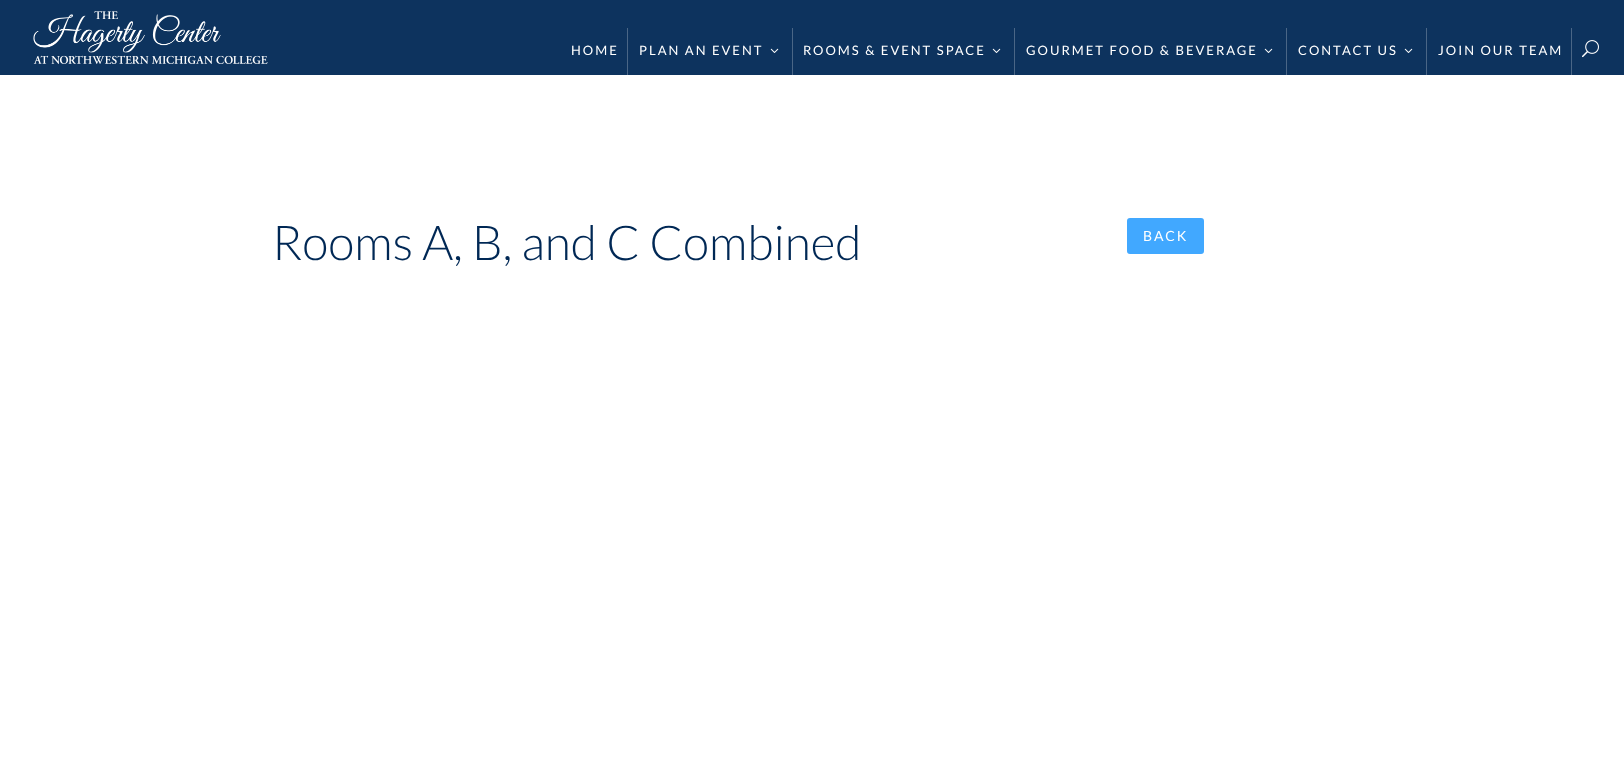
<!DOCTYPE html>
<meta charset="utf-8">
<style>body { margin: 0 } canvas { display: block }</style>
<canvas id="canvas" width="1624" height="763"></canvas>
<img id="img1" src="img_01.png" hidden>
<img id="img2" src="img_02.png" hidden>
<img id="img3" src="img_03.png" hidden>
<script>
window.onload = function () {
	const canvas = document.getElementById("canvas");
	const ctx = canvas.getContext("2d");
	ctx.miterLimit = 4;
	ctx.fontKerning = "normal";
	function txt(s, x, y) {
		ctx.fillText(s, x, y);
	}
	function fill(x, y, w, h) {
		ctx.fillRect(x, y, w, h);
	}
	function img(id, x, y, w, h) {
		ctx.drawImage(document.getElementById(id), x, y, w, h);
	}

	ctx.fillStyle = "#FFFFFF";
	fill(0, 0, 1624, 763);
	ctx.fillStyle = "#0D335E";
	fill(0, 0, 1624, 75);
	img("img1", 33, 11, 235, 53);
	ctx.fillStyle = "#4A6686";
	fill(627, 28, 1, 47);
	fill(792, 28, 1, 47);
	img("img2", 770, 48, 9, 5);
	fill(1014, 28, 1, 47);
	img("img2", 992, 48, 9, 5);
	fill(1286, 28, 1, 47);
	img("img2", 1264, 48, 9, 5);
	fill(1426, 28, 1, 47);
	img("img2", 1404, 48, 9, 5);
	fill(1571, 28, 1, 47);
	img("img3", 1582, 40, 17, 18);
	ctx.fillStyle = "#41A8FF";
	ctx.beginPath();
	ctx.roundRect(1128, 219, 75, 34, 2);
	ctx.fill();
	ctx.strokeStyle = "#41A8FF";
	ctx.lineWidth = 2;
	ctx.stroke();
	ctx.letterSpacing = "2px";
	ctx.font = "13px Lato";
	ctx.fillStyle = "#FFFFFF";
	txt("HOME", 571, 55);
	txt("PLAN AN EVENT", 639, 55);
	txt("ROOMS & EVENT SPACE", 803, 55);
	txt("GOURMET FOOD & BEVERAGE", 1026, 55);
	txt("CONTACT US", 1298, 55);
	txt("JOIN OUR TEAM", 1438, 55);
	ctx.letterSpacing = "0px";
	ctx.font = "300 48px Lato";
	ctx.fillStyle = "#002855";
	txt("Rooms A, B, and C Combined", 272, 260);
	ctx.letterSpacing = "2px";
	ctx.font = "14px Lato";
	ctx.fillStyle = "#FFFFFF";
	txt("BACK", 1143, 241);
};
</script>
